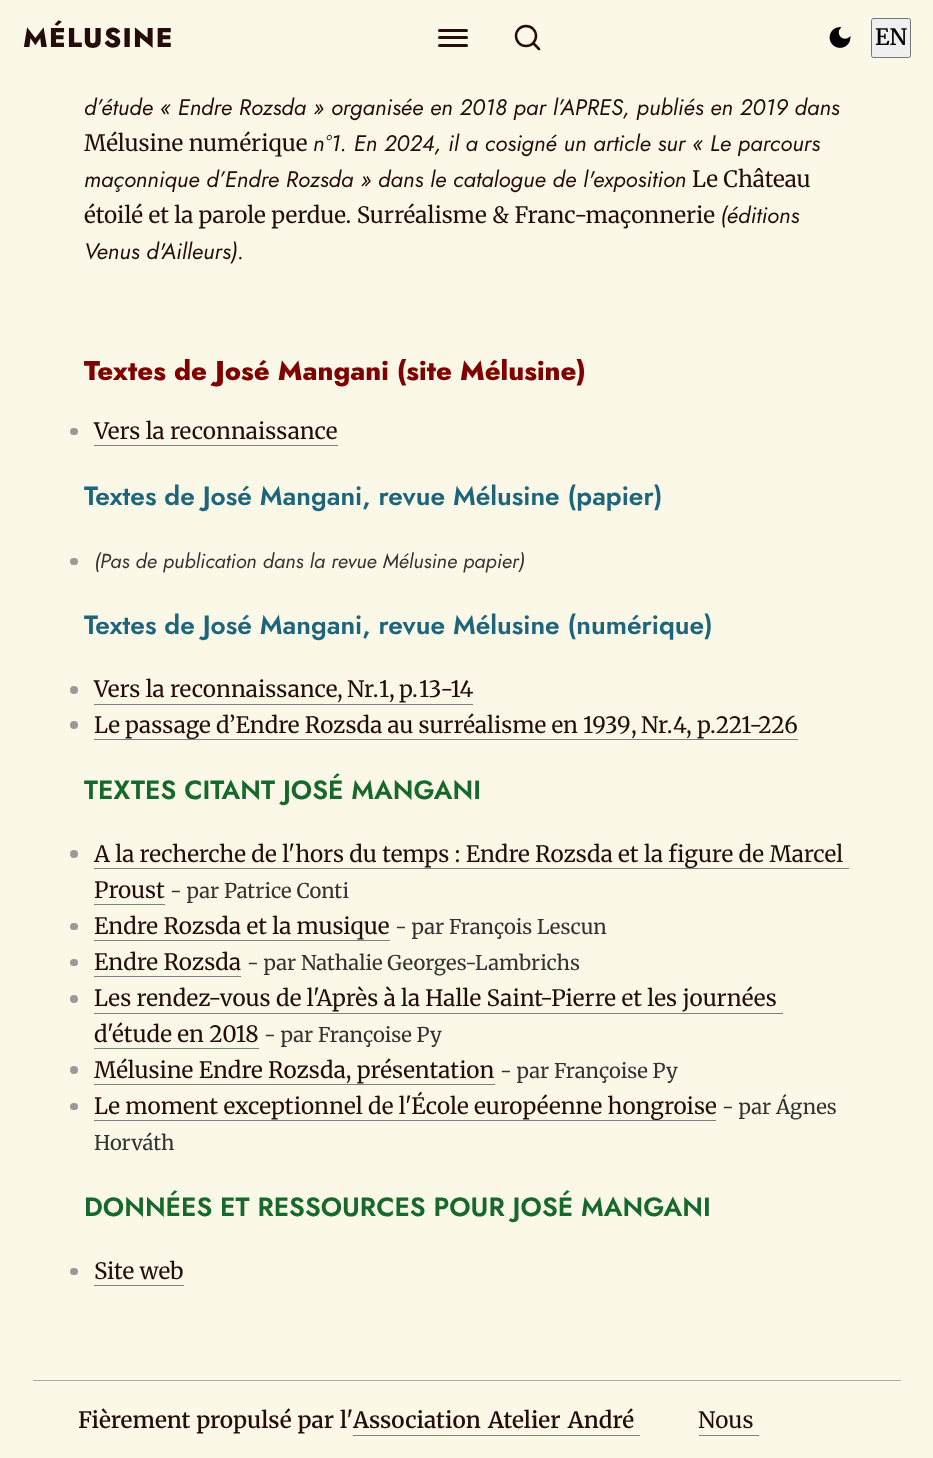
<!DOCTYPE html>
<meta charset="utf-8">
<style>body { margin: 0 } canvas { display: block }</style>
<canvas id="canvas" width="933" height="1458"></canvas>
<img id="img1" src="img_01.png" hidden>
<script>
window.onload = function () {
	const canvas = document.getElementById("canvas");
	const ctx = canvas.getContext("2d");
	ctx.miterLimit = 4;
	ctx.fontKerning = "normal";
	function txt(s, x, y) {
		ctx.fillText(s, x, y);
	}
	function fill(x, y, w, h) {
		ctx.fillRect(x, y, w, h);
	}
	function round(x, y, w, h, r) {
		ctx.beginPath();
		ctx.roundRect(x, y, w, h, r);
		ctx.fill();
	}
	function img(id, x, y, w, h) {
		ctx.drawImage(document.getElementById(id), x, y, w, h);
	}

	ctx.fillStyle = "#FBF8E7";
	fill(0, 0, 933, 1458);
	ctx.fillStyle = "#260D0D";
	round(438, 29, 30, 3, 1.5);
	round(438, 36, 30, 3, 1.5);
	round(438, 44, 30, 3, 1.5);
	ctx.beginPath();
	ctx.arc(526, 36, 10, 0, Math.PI * 2);
	ctx.strokeStyle = "#260D0D";
	ctx.lineWidth = 2.5;
	ctx.stroke();
	ctx.beginPath();
	ctx.moveTo(539, 49);
	ctx.lineTo(533.5, 43.5);
	ctx.lineCap = "round";
	ctx.lineJoin = "round";
	ctx.stroke();
	img("img1", 829, 26, 22, 22);
	ctx.fillStyle = "#EFEFEF";
	ctx.beginPath();
	ctx.roundRect(871.5, 18.5, 39, 39, 2);
	ctx.fill();
	ctx.strokeStyle = "#767676";
	ctx.lineWidth = 1;
	ctx.lineJoin = "miter";
	ctx.stroke();
	ctx.fillStyle = "#999999";
	round(70, 428, 8, 7, 3.5);
	ctx.fillStyle = "#808080";
	fill(94, 445, 244, 1);
	ctx.fillStyle = "#999999";
	round(70, 558, 8, 7, 3.5);
	ctx.beginPath();
	ctx.arc(74, 690, 4, 0, Math.PI * 2);
	ctx.fill();
	ctx.fillStyle = "#808080";
	fill(94, 704, 379, 1);
	ctx.fillStyle = "#999999";
	ctx.beginPath();
	ctx.arc(74, 725, 4, 0, Math.PI * 2);
	ctx.fill();
	ctx.fillStyle = "#808080";
	fill(94, 739, 704, 1);
	ctx.fillStyle = "#999999";
	ctx.beginPath();
	ctx.arc(74, 854, 4, 0, Math.PI * 2);
	ctx.fill();
	ctx.fillStyle = "#808080";
	fill(94, 868, 755, 1);
	fill(94, 904, 71, 1);
	ctx.fillStyle = "#999999";
	round(70, 923, 8, 7, 3.5);
	ctx.fillStyle = "#808080";
	fill(94, 940, 296, 1);
	ctx.fillStyle = "#999999";
	round(70, 959, 8, 7, 3.5);
	ctx.fillStyle = "#808080";
	fill(94, 976, 147, 1);
	ctx.fillStyle = "#999999";
	ctx.beginPath();
	ctx.arc(74, 999, 4, 0, Math.PI * 2);
	ctx.fill();
	ctx.fillStyle = "#808080";
	fill(94, 1013, 689, 1);
	fill(94, 1048, 165, 1);
	ctx.fillStyle = "#999999";
	ctx.beginPath();
	ctx.arc(74, 1070, 4, 0, Math.PI * 2);
	ctx.fill();
	ctx.fillStyle = "#808080";
	fill(94, 1084, 401, 1);
	ctx.fillStyle = "#999999";
	round(70, 1103, 8, 7, 3.5);
	ctx.fillStyle = "#808080";
	fill(94, 1120, 622, 1);
	ctx.fillStyle = "#999999";
	round(70, 1268, 8, 7, 3.5);
	ctx.fillStyle = "#808080";
	fill(94, 1285, 90, 1);
	ctx.fillStyle = "#A9A9A9";
	fill(33, 1380, 868, 1);
	ctx.fillStyle = "#808080";
	fill(353, 1435, 287, 1);
	fill(699, 1435, 60, 1);
	ctx.letterSpacing = "1.25px";
	ctx.font = "800 27px Jost";
	ctx.fillStyle = "#260D0D";
	txt("MÉLUSINE", 23, 47);
	ctx.letterSpacing = "0px";
	ctx.font = "600 22.5px Merriweather";
	ctx.fillStyle = "#000000";
	txt("EN", 875, 45);
	ctx.font = "italic 22.5px Jost";
	ctx.fillStyle = "#260D0D";
	txt("d’étude « Endre Rozsda » organisée en 2018 par l’APRES, publiés en 2019 dans", 84, 115);
	ctx.font = "22.5px Merriweather";
	txt("Mélusine numérique", 84, 151);
	ctx.font = "italic 22.5px Jost";
	txt("n°1. En 2024, il a cosigné un article sur « Le parcours", 313, 151);
	txt("maçonnique d’Endre Rozsda » dans le catalogue de l'exposition", 84, 187);
	ctx.font = "22.5px Merriweather";
	txt("Le Château", 692, 187);
	txt("étoilé et la parole perdue. Surréalisme & Franc-maçonnerie", 84, 223);
	ctx.font = "italic 22.5px Jost";
	txt("(éditions", 720, 223);
	txt("Venus d'Ailleurs).", 84, 259);
	ctx.font = "800 27px Jost";
	ctx.fillStyle = "#800000";
	txt("Textes de José Mangani (site Mélusine)", 84, 380);
	ctx.font = "22.5px Merriweather";
	ctx.fillStyle = "#260D0D";
	txt("Vers la reconnaissance", 94, 439);
	ctx.font = "600 26.3px Jost";
	ctx.fillStyle = "#1C657D";
	txt("Textes de José Mangani, revue Mélusine (papier)", 84, 505);
	ctx.font = "italic 20.25px Jost";
	ctx.fillStyle = "#333333";
	txt("(Pas de publication dans la revue Mélusine papier)", 94, 568);
	ctx.font = "600 26.3px Jost";
	ctx.fillStyle = "#1C657D";
	txt("Textes de José Mangani, revue Mélusine (numérique)", 84, 634);
	ctx.font = "22.5px Merriweather";
	ctx.fillStyle = "#260D0D";
	txt("Vers la reconnaissance", 94, 697);
	ctx.wordSpacing = "-1px";
	txt(", Nr.", 337, 697);
	ctx.wordSpacing = "0px";
	txt("1", 379, 697);
	ctx.wordSpacing = "-1px";
	txt(", p.", 389, 697);
	ctx.wordSpacing = "0px";
	txt("13-14", 419, 697);
	ctx.wordSpacing = "-0.25px";
	txt("Le passage d’Endre Rozsda au surréalisme en 1939", 94, 733);
	ctx.wordSpacing = "-1px";
	txt(", Nr.", 631, 733);
	ctx.wordSpacing = "0px";
	txt("4", 673, 733);
	txt(", p.221-226", 686, 733);
	ctx.font = "600 26.3px Jost";
	ctx.fillStyle = "#16692B";
	txt("TEXTES CITANT JOSÉ MANGANI", 84, 799);
	ctx.font = "22.5px Merriweather";
	ctx.fillStyle = "#260D0D";
	txt("A la recherche de l'hors du temps : Endre Rozsda et la figure de Marcel", 94, 862);
	txt("Proust", 94, 898);
	ctx.font = "20.25px Merriweather";
	ctx.fillStyle = "#333333";
	txt("- par Patrice Conti", 170, 898);
	ctx.font = "22.5px Merriweather";
	ctx.fillStyle = "#260D0D";
	txt("Endre Rozsda et la musique", 94, 934);
	ctx.font = "20.25px Merriweather";
	ctx.fillStyle = "#333333";
	txt("- par François Lescun", 395, 934);
	ctx.font = "22.5px Merriweather";
	ctx.fillStyle = "#260D0D";
	txt("Endre Rozsda", 94, 970);
	ctx.font = "20.25px Merriweather";
	ctx.fillStyle = "#333333";
	txt("- par Nathalie Georges-Lambrichs", 247, 970);
	ctx.font = "22.5px Merriweather";
	ctx.fillStyle = "#260D0D";
	txt("Les rendez-vous de l'Après à la Halle Saint-Pierre et les journées", 94, 1006);
	txt("d'étude en 2018", 94, 1042);
	ctx.font = "20.25px Merriweather";
	ctx.fillStyle = "#333333";
	txt("- par Françoise Py", 264, 1042);
	ctx.font = "22.5px Merriweather";
	ctx.fillStyle = "#260D0D";
	txt("Mélusine Endre Rozsda, présentation", 94, 1078);
	ctx.font = "20.25px Merriweather";
	ctx.fillStyle = "#333333";
	txt("- par Françoise Py", 500, 1078);
	ctx.font = "22.5px Merriweather";
	ctx.fillStyle = "#260D0D";
	txt("Le moment exceptionnel de l'École européenne hongroise", 94, 1114);
	ctx.font = "20.25px Merriweather";
	ctx.fillStyle = "#333333";
	txt("- par Ágnes", 722, 1114);
	txt("Horváth", 94, 1150);
	ctx.font = "600 26.3px Jost";
	ctx.fillStyle = "#16692B";
	txt("DONNÉES ET RESSOURCES POUR JOSÉ MANGANI", 84, 1216);
	ctx.font = "22.5px Merriweather";
	ctx.fillStyle = "#260D0D";
	txt("Site web", 94, 1279);
	ctx.wordSpacing = "0.5px";
	ctx.font = "600 22.5px Merriweather";
	txt("Fièrement propulsé par l'", 78, 1428);
	ctx.wordSpacing = "2px";
	txt("Association Atelier André", 353, 1428);
	ctx.wordSpacing = "0px";
	ctx.font = "22.5px Merriweather";
	txt("Nous", 698, 1428);
};
</script>
